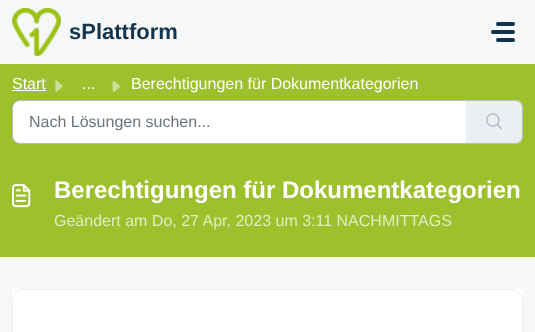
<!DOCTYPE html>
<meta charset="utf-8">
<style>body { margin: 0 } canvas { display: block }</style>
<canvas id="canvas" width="535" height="332"></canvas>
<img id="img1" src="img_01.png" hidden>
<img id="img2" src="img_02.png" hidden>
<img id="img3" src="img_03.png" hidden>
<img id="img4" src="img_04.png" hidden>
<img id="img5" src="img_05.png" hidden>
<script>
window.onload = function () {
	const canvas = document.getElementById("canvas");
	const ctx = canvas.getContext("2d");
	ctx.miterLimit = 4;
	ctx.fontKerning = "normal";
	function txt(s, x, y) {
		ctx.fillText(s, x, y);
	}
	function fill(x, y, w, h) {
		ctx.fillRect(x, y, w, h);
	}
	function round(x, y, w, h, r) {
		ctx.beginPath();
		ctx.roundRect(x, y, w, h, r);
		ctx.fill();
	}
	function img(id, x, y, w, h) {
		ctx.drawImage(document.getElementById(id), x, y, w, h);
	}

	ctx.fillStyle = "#F5F7F9";
	fill(0, 0, 535, 332);
	img("img1", 12, 8, 49, 48);
	ctx.fillStyle = "#12344D";
	round(496, 22, 19, 4, 2);
	round(491, 30, 24, 4, 2);
	round(496, 38, 19, 4, 2);
	ctx.fillStyle = "#9DC02D";
	fill(0, 64, 535, 193);
	ctx.fillStyle = "#FFFFFF";
	fill(12, 90, 34, 1);
	img("img2", 55, 80, 8, 12);
	img("img3", 112, 80, 8, 13);
	ctx.beginPath();
	ctx.roundRect(12.5, 100.5, 454, 43, [7.5, 0, 0, 7.5]);
	ctx.fill();
	ctx.strokeStyle = "#B1BDC8";
	ctx.stroke();
	ctx.fillStyle = "#EBEFF3";
	ctx.beginPath();
	ctx.roundRect(466, 100, 57, 44, [0, 8, 8, 0]);
	ctx.fill();
	ctx.fillStyle = "#B1BDC8";
	ctx.beginPath();
	ctx.moveTo(466, 100);
	ctx.lineTo(515, 100);
	ctx.bezierCurveTo(519, 100, 523, 104, 523, 108);
	ctx.lineTo(523, 136);
	ctx.bezierCurveTo(523, 140, 519, 144, 515, 144);
	ctx.lineTo(466, 144);
	ctx.closePath();
	ctx.moveTo(466, 101);
	ctx.lineTo(515, 101);
	ctx.bezierCurveTo(519, 101, 522, 104, 522, 108);
	ctx.lineTo(522, 136);
	ctx.bezierCurveTo(522, 140, 519, 143, 515, 143);
	ctx.lineTo(466, 143);
	ctx.closePath();
	ctx.fill("evenodd");
	img("img4", 486, 113, 16, 17);
	img("img5", 12, 184, 19, 24);
	ctx.fillStyle = "#FFFFFF";
	fill(12, 289, 511, 43);
	ctx.beginPath();
	ctx.roundRect(12.5, 289.5, 510, 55, 11.5);
	ctx.strokeStyle = "#EBEFF3";
	ctx.stroke();
	ctx.font = "bold 22px Liberation Sans";
	ctx.fillStyle = "#12344D";
	txt("sPlattform", 69, 39);
	ctx.font = "16px Liberation Sans";
	ctx.fillStyle = "#FFFFFF";
	txt("Start", 12, 89);
	txt("...", 82, 89);
	txt("Berechtigungen für Dokumentkategorien", 131, 89);
	ctx.fillStyle = "#6C757D";
	txt("Nach Lösungen suchen...", 29, 127);
	ctx.font = "bold 24px Liberation Sans";
	ctx.fillStyle = "#FFFFFF";
	txt("Berechtigungen für Dokumentkategorien", 54, 198);
	ctx.font = "16px Liberation Sans";
	ctx.fillStyle = "#E2ECC0";
	txt("Geändert am Do, 27 Apr, 2023 um 3:11 NACHMITTAGS", 54, 226);
};
</script>
